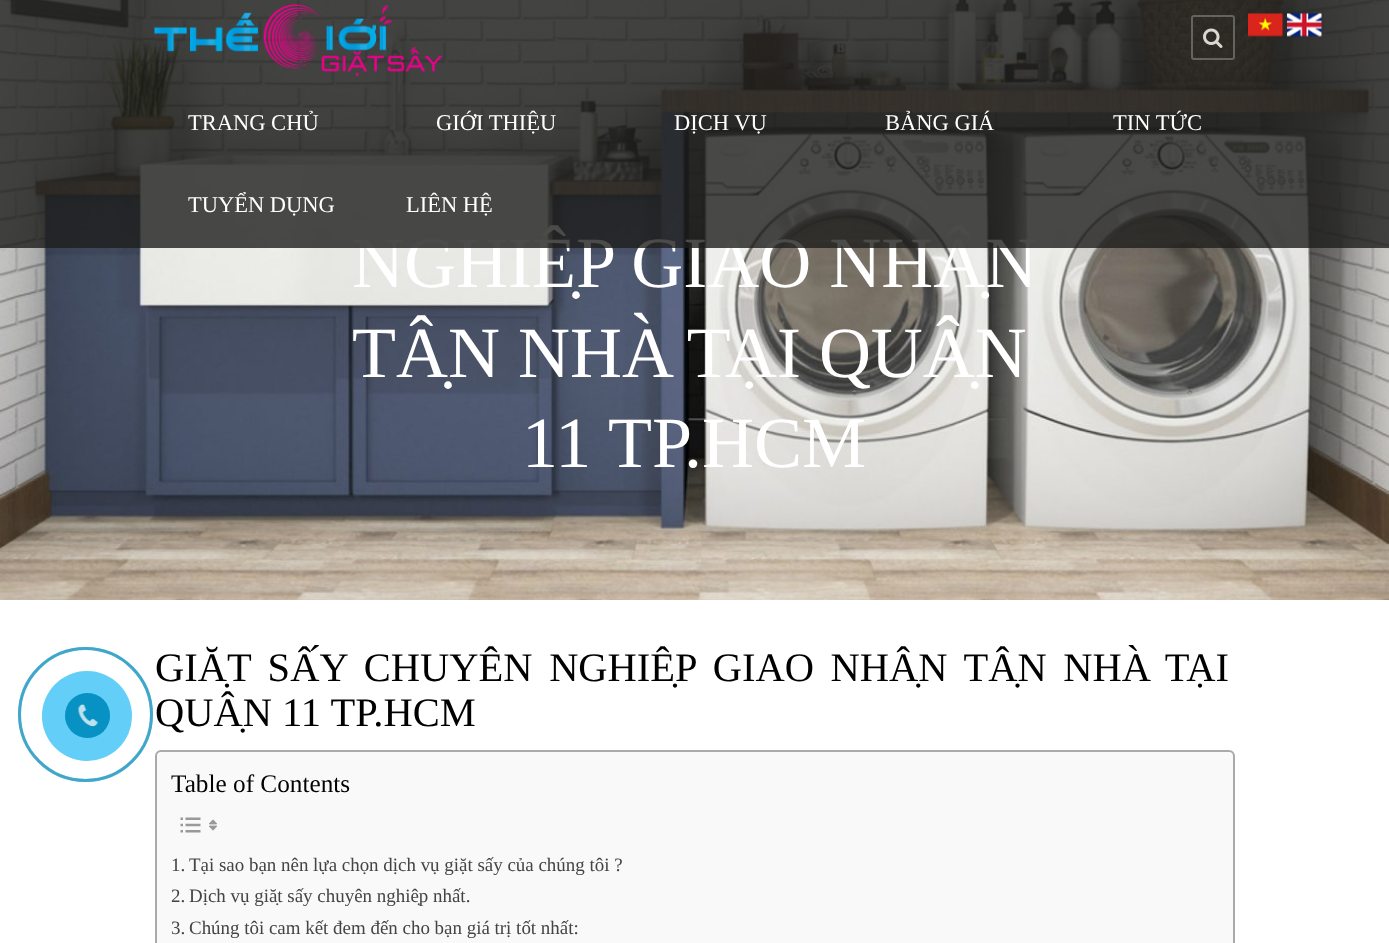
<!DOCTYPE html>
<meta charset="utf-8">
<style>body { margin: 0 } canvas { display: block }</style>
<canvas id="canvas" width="1389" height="943"></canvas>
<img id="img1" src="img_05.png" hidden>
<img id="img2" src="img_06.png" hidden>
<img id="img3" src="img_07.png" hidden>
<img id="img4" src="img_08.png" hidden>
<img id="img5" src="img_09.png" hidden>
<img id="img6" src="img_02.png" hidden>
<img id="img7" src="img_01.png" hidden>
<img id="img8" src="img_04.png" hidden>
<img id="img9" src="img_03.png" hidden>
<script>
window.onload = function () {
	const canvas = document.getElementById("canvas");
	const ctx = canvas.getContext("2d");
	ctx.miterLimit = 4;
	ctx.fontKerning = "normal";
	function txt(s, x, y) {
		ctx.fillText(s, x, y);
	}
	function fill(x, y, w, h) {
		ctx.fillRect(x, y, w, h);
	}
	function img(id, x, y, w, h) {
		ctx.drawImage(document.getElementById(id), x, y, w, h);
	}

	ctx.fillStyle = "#FFFFFF";
	fill(0, 0, 1389, 943);
	ctx.beginPath();
	ctx.arc(85.5, 714.5, 66, 0, Math.PI * 2);
	ctx.strokeStyle = "#80C4DC";
	ctx.lineWidth = 3;
	ctx.stroke();
	ctx.fillStyle = "#A0E1FA";
	ctx.beginPath();
	ctx.arc(87, 716, 45, 0, Math.PI * 2);
	ctx.fill();
	ctx.fillStyle = "#30A3CD";
	ctx.beginPath();
	ctx.arc(87.5, 715.5, 22.5, 0, Math.PI * 2);
	ctx.fill();
	img("img1", 78, 704, 20, 23);
	img("img2", 0, 0, 1389, 600);
	ctx.fillStyle = "#F9F9F9";
	ctx.beginPath();
	ctx.roundRect(156, 751, 1078, 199, 5);
	ctx.fill();
	ctx.strokeStyle = "#AAAAAA";
	ctx.lineWidth = 2;
	ctx.stroke();
	img("img3", 180, 817, 21, 16);
	img("img4", 209, 819, 8, 12);
	ctx.beginPath();
	ctx.arc(85.5, 714.5, 66, 0, Math.PI * 2);
	ctx.strokeStyle = "rgba(0, 137, 185, 0.5)";
	ctx.lineWidth = 3;
	ctx.stroke();
	ctx.fillStyle = "rgba(0, 175, 242, 0.38)";
	ctx.beginPath();
	ctx.arc(87, 716, 45, 0, Math.PI * 2);
	ctx.fill();
	ctx.fillStyle = "rgba(0, 137, 185, 0.7)";
	ctx.beginPath();
	ctx.arc(87.5, 715.5, 22.5, 0, Math.PI * 2);
	ctx.fill();
	img("img5", 78, 704, 20, 23);
	ctx.font = "72px Liberation Serif";
	ctx.fillStyle = "#FFFFFF";
	txt("NGHIỆP GIAO NHẬN", 352, 287);
	ctx.fillStyle = "rgba(30, 30, 29, 0.8)";
	fill(0, 0, 1389, 248);
	img("img6", 1287, 13, 35, 24);
	img("img7", 1248, 13, 35, 24);
	ctx.font = "22.5px Liberation Serif";
	ctx.fillStyle = "#FFFFFF";
	txt("LIÊN HỆ", 406, 212);
	txt("TUYỂN DỤNG", 188, 212);
	txt("TIN TỨC", 1113, 130);
	txt("BẢNG GIÁ", 885, 130);
	txt("DỊCH VỤ", 674, 130);
	txt("GIỚI THIỆU", 436, 130);
	txt("TRANG CHỦ", 188, 130);
	ctx.beginPath();
	ctx.roundRect(1192, 16, 42, 43, 2);
	ctx.strokeStyle = "#636360";
	ctx.lineWidth = 2;
	ctx.stroke();
	img("img8", 1203, 28, 20, 20);
	img("img9", 154, 4, 289, 73);
	ctx.font = "72px Liberation Serif";
	txt("TẬN NHÀ TẠI QUẬN", 352, 377);
	txt("11 TP.HCM", 522, 467);
	ctx.wordSpacing = "6.5px";
	ctx.font = "40.5px Liberation Serif";
	ctx.fillStyle = "#000000";
	txt("GIẶT SẤY CHUYÊN NGHIỆP GIAO NHẬN TẬN NHÀ TẠI", 155, 681);
	ctx.wordSpacing = "0px";
	txt("QUẬN 11 TP.HCM", 155, 726);
	ctx.font = "25.25px Liberation Serif";
	txt("Table of Contents", 171, 792);
	ctx.font = "18.95px Liberation Serif";
	ctx.fillStyle = "#444444";
	txt("1.", 171, 871);
	txt("Tại sao bạn nên lựa chọn dịch vụ giặt sấy của chúng tôi ?", 189, 871);
	txt("2.", 171, 902);
	txt("Dịch vụ giặt sấy chuyên nghiệp nhất.", 189, 902);
	txt("3.", 171, 934);
	txt("Chúng tôi cam kết đem đến cho bạn giá trị tốt nhất:", 189, 934);
};
</script>
